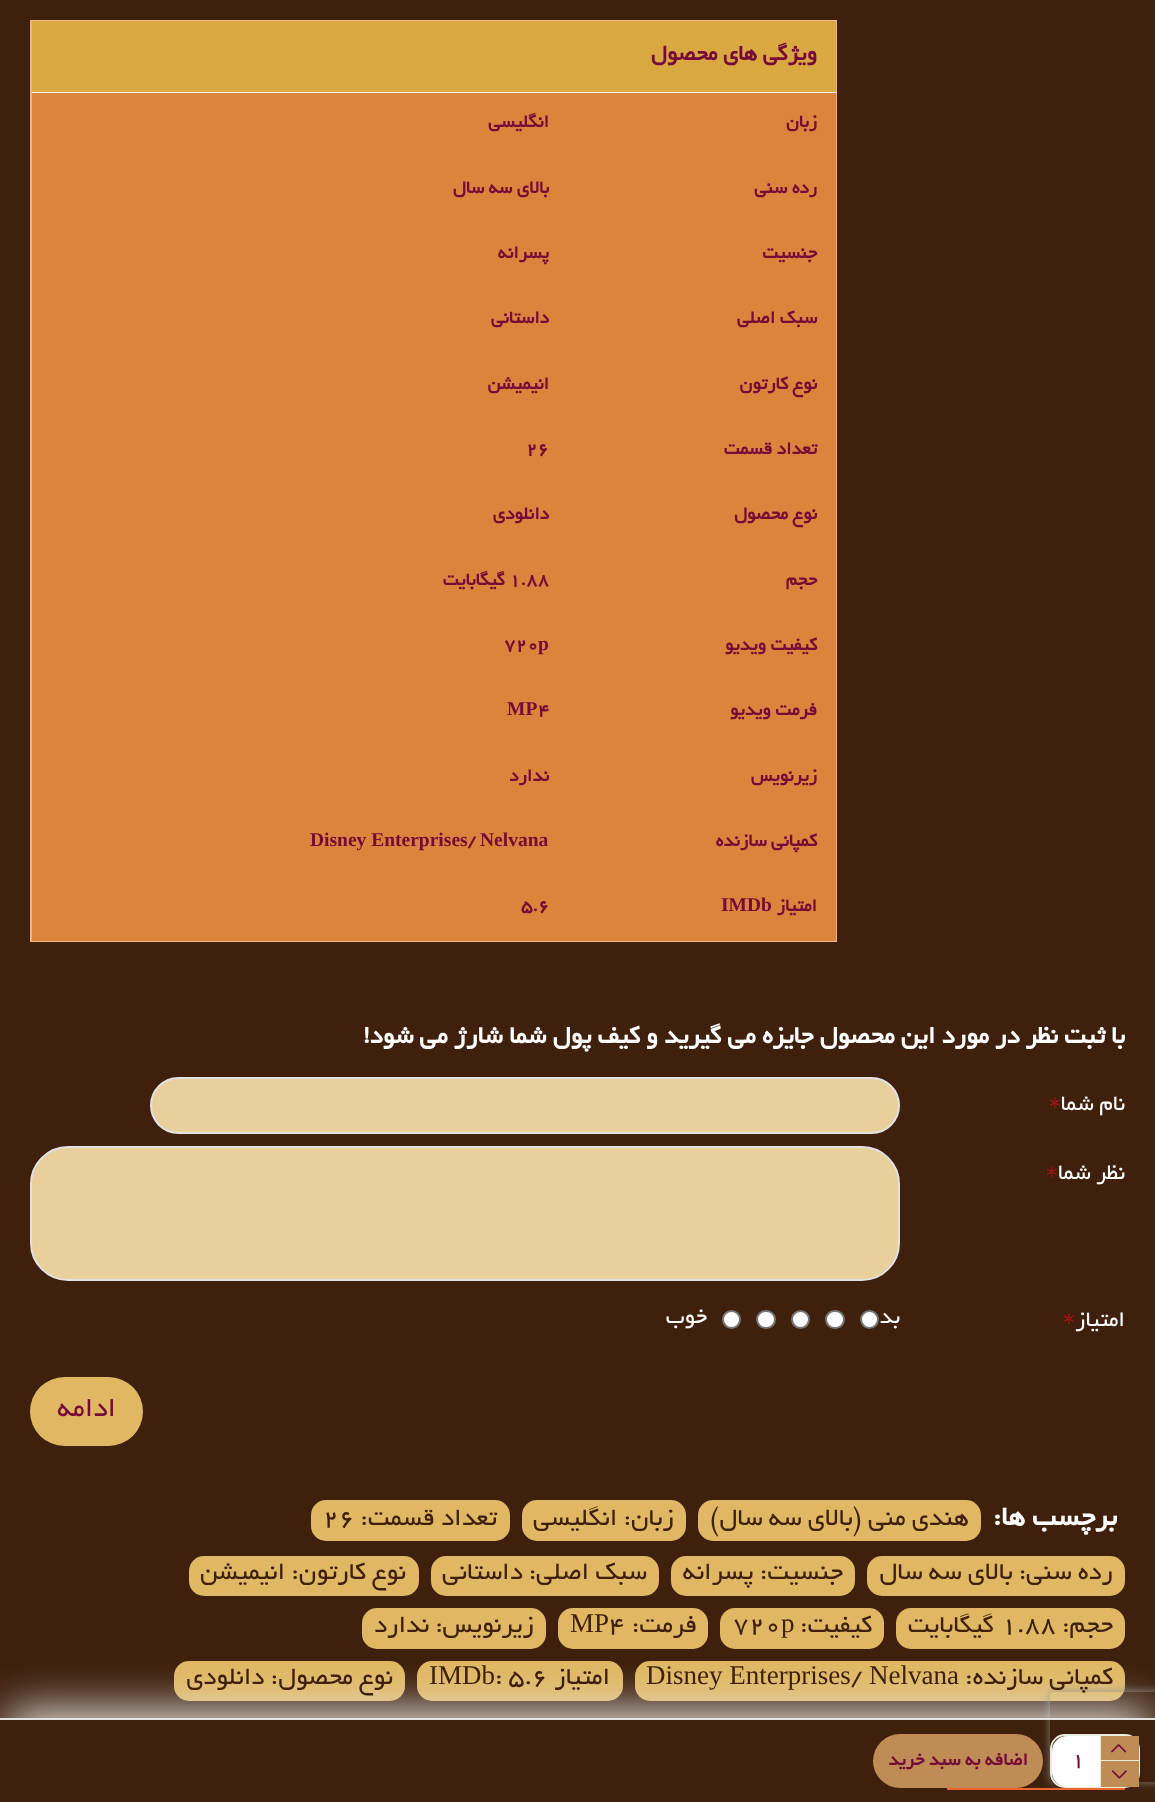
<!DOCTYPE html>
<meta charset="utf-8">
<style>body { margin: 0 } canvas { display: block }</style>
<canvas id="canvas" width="1155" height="1802"></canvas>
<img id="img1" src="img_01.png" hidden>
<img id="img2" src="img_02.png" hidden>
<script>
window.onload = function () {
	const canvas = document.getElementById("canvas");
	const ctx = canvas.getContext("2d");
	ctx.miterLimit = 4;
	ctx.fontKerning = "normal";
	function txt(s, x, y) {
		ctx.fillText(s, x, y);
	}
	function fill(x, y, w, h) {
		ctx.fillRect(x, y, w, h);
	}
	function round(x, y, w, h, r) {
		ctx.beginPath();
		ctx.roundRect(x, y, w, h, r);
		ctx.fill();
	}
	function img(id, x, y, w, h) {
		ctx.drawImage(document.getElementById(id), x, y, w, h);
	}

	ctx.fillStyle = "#3E200C";
	fill(0, 0, 1155, 1802);
	ctx.strokeStyle = "#F0B386";
	ctx.lineWidth = 2;
	ctx.strokeRect(31, 21, 805, 920);
	ctx.fillStyle = "#D9A841";
	fill(32, 21, 804, 71);
	ctx.fillStyle = "#FFFFFF";
	fill(32, 92, 804, 1);
	ctx.fillStyle = "#DB843C";
	fill(32, 93, 804, 65);
	fill(32, 158, 804, 66);
	fill(32, 224, 804, 66);
	fill(32, 290, 804, 64);
	fill(32, 354, 804, 66);
	fill(32, 420, 804, 65);
	fill(32, 485, 804, 66);
	fill(32, 551, 804, 64);
	fill(32, 615, 804, 66);
	fill(32, 681, 804, 65);
	fill(32, 746, 804, 66);
	fill(32, 812, 804, 66);
	fill(32, 878, 804, 63);
	ctx.fillStyle = "#E0B863";
	round(896, 1608, 229, 41, 15);
	round(720, 1608, 164, 41, 15);
	round(558, 1608, 150, 41, 15);
	round(362, 1608, 184, 41, 15);
	round(635, 1661, 490, 40, 15);
	round(417, 1661, 206, 40, 15);
	round(174, 1661, 231, 40, 15);
	ctx.save();
	ctx.beginPath();
	ctx.moveTo(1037, 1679);
	ctx.lineTo(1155, 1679);
	ctx.lineTo(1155, 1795);
	ctx.lineTo(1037, 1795);
	ctx.closePath();
	ctx.moveTo(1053, 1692);
	ctx.lineTo(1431, 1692);
	ctx.bezierCurveTo(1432.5, 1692, 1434, 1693.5, 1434, 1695);
	ctx.lineTo(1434, 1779);
	ctx.bezierCurveTo(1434, 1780.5, 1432.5, 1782, 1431, 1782);
	ctx.lineTo(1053, 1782);
	ctx.bezierCurveTo(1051.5, 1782, 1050, 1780.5, 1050, 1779);
	ctx.lineTo(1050, 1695);
	ctx.bezierCurveTo(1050, 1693.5, 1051.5, 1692, 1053, 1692);
	ctx.closePath();
	ctx.clip("evenodd");
	ctx.fillStyle = "#808080";
	ctx.filter = "blur(4px)";
	ctx.beginPath();
	ctx.roundRect(1050, 1692, 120, 90, 3);
	ctx.fill();
	ctx.filter = "none";
	ctx.restore();
	ctx.fillStyle = "#E96631";
	fill(947, 1788, 178, 2);
	ctx.save();
	ctx.beginPath();
	ctx.rect(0, 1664, 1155, 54);
	ctx.clip();
	ctx.fillStyle = "#E2E2E2";
	ctx.filter = "blur(22.5px)";
	ctx.beginPath();
	ctx.rect(8, 1710, 1140, 71);
	ctx.fill();
	ctx.filter = "none";
	ctx.restore();
	ctx.fillStyle = "#E2E2E2";
	fill(0, 1718, 1155, 2);
	ctx.beginPath();
	ctx.roundRect(1051, 1735, 88, 52, 14);
	ctx.strokeStyle = "#EAECDC";
	ctx.stroke();
	ctx.fillStyle = "#FFFFFF";
	round(1052, 1736, 87, 51, 15);
	ctx.fillStyle = "#EAECDC";
	fill(1100, 1736, 1, 51);
	ctx.fillStyle = "#C08C55";
	fill(1101, 1736, 38, 24);
	ctx.fillStyle = "#EAECDC";
	fill(1101, 1760, 38, 1);
	img("img1", 1111, 1744, 16, 9);
	ctx.fillStyle = "#C08C55";
	fill(1101, 1761, 38, 26);
	img("img2", 1111, 1770, 16, 9);
	round(873, 1734, 170, 54, 27);
	ctx.fillStyle = "#E8CF9C";
	ctx.beginPath();
	ctx.roundRect(151, 1078, 748, 55, 27.5);
	ctx.fill();
	ctx.strokeStyle = "#E2E2E2";
	ctx.stroke();
	ctx.beginPath();
	ctx.roundRect(31, 1147, 868, 133, 37);
	ctx.fill();
	ctx.stroke();
	ctx.fillStyle = "#FFFFFF";
	ctx.beginPath();
	ctx.arc(869.5, 1319.5, 8.5, 0, Math.PI * 2);
	ctx.fill();
	ctx.strokeStyle = "#767676";
	ctx.stroke();
	ctx.beginPath();
	ctx.roundRect(826, 1311, 18, 17, 8.5);
	ctx.fill();
	ctx.stroke();
	ctx.beginPath();
	ctx.arc(800.5, 1319.5, 8.5, 0, Math.PI * 2);
	ctx.fill();
	ctx.stroke();
	ctx.beginPath();
	ctx.roundRect(757, 1311, 18, 17, 8.5);
	ctx.fill();
	ctx.stroke();
	ctx.beginPath();
	ctx.arc(731.5, 1319.5, 8.5, 0, Math.PI * 2);
	ctx.fill();
	ctx.stroke();
	ctx.fillStyle = "#E0B863";
	round(30, 1377, 113, 69, 34.5);
	round(698, 1500, 283, 41, 15);
	round(522, 1500, 164, 41, 15);
	round(311, 1500, 199, 41, 15);
	round(867, 1556, 258, 40, 15);
	round(671, 1556, 184, 40, 15);
	round(431, 1556, 228, 40, 15);
	round(189, 1556, 230, 40, 15);
	ctx.direction = "rtl";
	ctx.font = "bold 24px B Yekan";
	ctx.fillStyle = "#760B39";
	txt("ویژگی های محصول", 817, 60);
	ctx.font = "bold 19.5px B Yekan";
	txt("زبان", 817, 127);
	txt("انگلیسی", 549, 127);
	txt("رده سنی", 817, 193);
	txt("بالای سه سال", 549, 193);
	txt("جنسیت", 817, 258);
	txt("پسرانه", 549, 258);
	txt("سبک اصلی", 817, 323);
	txt("داستانی", 549, 323);
	txt("نوع کارتون", 817, 389);
	txt("انیمیشن", 549, 389);
	txt("تعداد قسمت", 817, 454);
	ctx.direction = "ltr";
	txt("26", 526, 454);
	ctx.direction = "rtl";
	txt("نوع محصول", 817, 519);
	txt("دانلودی", 549, 519);
	txt("حجم", 817, 585);
	ctx.direction = "ltr";
	txt("1.88", 509, 585);
	ctx.direction = "rtl";
	txt("گیگابایت", 505, 585);
	txt("کیفیت ویدیو", 817, 650);
	ctx.direction = "ltr";
	ctx.font = "bold 19.5px Liberation Serif";
	txt("p", 538, 650);
	ctx.font = "bold 19.5px B Yekan";
	txt("720", 504, 650);
	ctx.direction = "rtl";
	txt("فرمت ویدیو", 817, 715);
	ctx.direction = "ltr";
	txt("4", 538, 715);
	ctx.font = "bold 19.5px Liberation Serif";
	txt("MP", 507, 715);
	ctx.direction = "rtl";
	ctx.font = "bold 19.5px B Yekan";
	txt("زیرنویس", 817, 781);
	txt("ندارد", 549, 781);
	txt("کمپانی سازنده", 817, 846);
	ctx.direction = "ltr";
	ctx.font = "bold 19.5px Liberation Serif";
	txt("Nelvana", 480, 846);
	ctx.font = "bold 19.5px B Yekan";
	txt("/", 467, 846);
	ctx.font = "bold 19.5px Liberation Serif";
	txt("Disney Enterprises", 310, 846);
	ctx.direction = "rtl";
	ctx.font = "bold 19.5px B Yekan";
	txt("امتیاز", 817, 911);
	ctx.direction = "ltr";
	ctx.font = "bold 19.5px Liberation Serif";
	txt("IMDb", 721, 911);
	ctx.font = "bold 19.5px B Yekan";
	txt("5.6", 521, 911);
	ctx.font = "24px B Yekan";
	txt("1", 1071, 1766);
	ctx.direction = "rtl";
	ctx.font = "bold 19.5px B Yekan";
	txt("اضافه به سبد خرید", 1028, 1765);
	ctx.font = "bold 27px B Yekan";
	ctx.fillStyle = "#FFFFFF";
	txt("با ثبت نظر در مورد این محصول جایزه می گیرید و کیف پول شما شارژ می شود!", 1125, 1043);
	ctx.font = "24px B Yekan";
	txt("نام شما", 1125, 1110);
	ctx.direction = "ltr";
	ctx.font = "36px B Yekan";
	ctx.fillStyle = "#DD0E1C";
	txt("*", 1049, 1107);
	ctx.direction = "rtl";
	ctx.font = "24px B Yekan";
	ctx.fillStyle = "#FFFFFF";
	txt("نظر شما", 1125, 1179);
	ctx.direction = "ltr";
	ctx.font = "36px B Yekan";
	ctx.fillStyle = "#DD0E1C";
	txt("*", 1046, 1176);
	ctx.direction = "rtl";
	ctx.font = "24px B Yekan";
	ctx.fillStyle = "#FFFFFF";
	txt("امتیاز", 1125, 1326);
	ctx.direction = "ltr";
	ctx.font = "36px B Yekan";
	ctx.fillStyle = "#DD0E1C";
	txt("*", 1063, 1323);
	ctx.direction = "rtl";
	ctx.font = "24px B Yekan";
	ctx.fillStyle = "#FFFFFF";
	txt("بد", 900, 1323);
	txt("خوب", 707, 1323);
	ctx.font = "30px B Yekan";
	ctx.fillStyle = "#760B39";
	txt("ادامه", 116, 1416);
	ctx.font = "bold 30px B Yekan";
	ctx.fillStyle = "#FFFFFF";
	txt("برچسب ها:", 1117, 1525);
	ctx.font = "27px B Yekan";
	ctx.fillStyle = "#3E200C";
	txt("هندی منی (بالای سه سال)", 969, 1525);
	txt("زبان: انگلیسی", 674, 1525);
	txt("تعداد قسمت:", 497, 1525);
	ctx.direction = "ltr";
	txt("26", 323, 1525);
	ctx.direction = "rtl";
	txt("رده سنی: بالای سه سال", 1113, 1579);
	txt("جنسیت: پسرانه", 843, 1579);
	txt("سبک اصلی: داستانی", 647, 1579);
	txt("نوع کارتون: انیمیشن", 406, 1579);
	txt("حجم:", 1113, 1632);
	ctx.direction = "ltr";
	txt("1.88", 1001, 1632);
	ctx.direction = "rtl";
	txt("گیگابایت", 994, 1632);
	txt("کیفیت:", 872, 1632);
	ctx.direction = "ltr";
	ctx.font = "27px Liberation Serif";
	txt("p", 781, 1632);
	ctx.font = "27px B Yekan";
	txt("720", 733, 1632);
	ctx.direction = "rtl";
	txt("فرمت:", 697, 1632);
	ctx.direction = "ltr";
	txt("4", 609, 1632);
	ctx.font = "27px Liberation Serif";
	txt("MP", 570, 1632);
	ctx.direction = "rtl";
	ctx.font = "27px B Yekan";
	txt("زیرنویس: ندارد", 534, 1632);
	txt("کمپانی سازنده:", 1113, 1684);
	ctx.direction = "ltr";
	ctx.font = "27px Liberation Serif";
	txt("Nelvana", 869, 1684);
	ctx.font = "27px B Yekan";
	txt("/", 850, 1684);
	ctx.font = "27px Liberation Serif";
	txt("Disney Enterprises", 646, 1684);
	ctx.direction = "rtl";
	ctx.font = "27px B Yekan";
	txt("امتیاز", 610, 1684);
	ctx.direction = "ltr";
	txt(": 5.6", 495, 1684);
	ctx.font = "27px Liberation Serif";
	txt("IMDb", 429, 1684);
	ctx.direction = "rtl";
	ctx.font = "27px B Yekan";
	txt("نوع محصول: دانلودی", 393, 1684);
};
</script>
